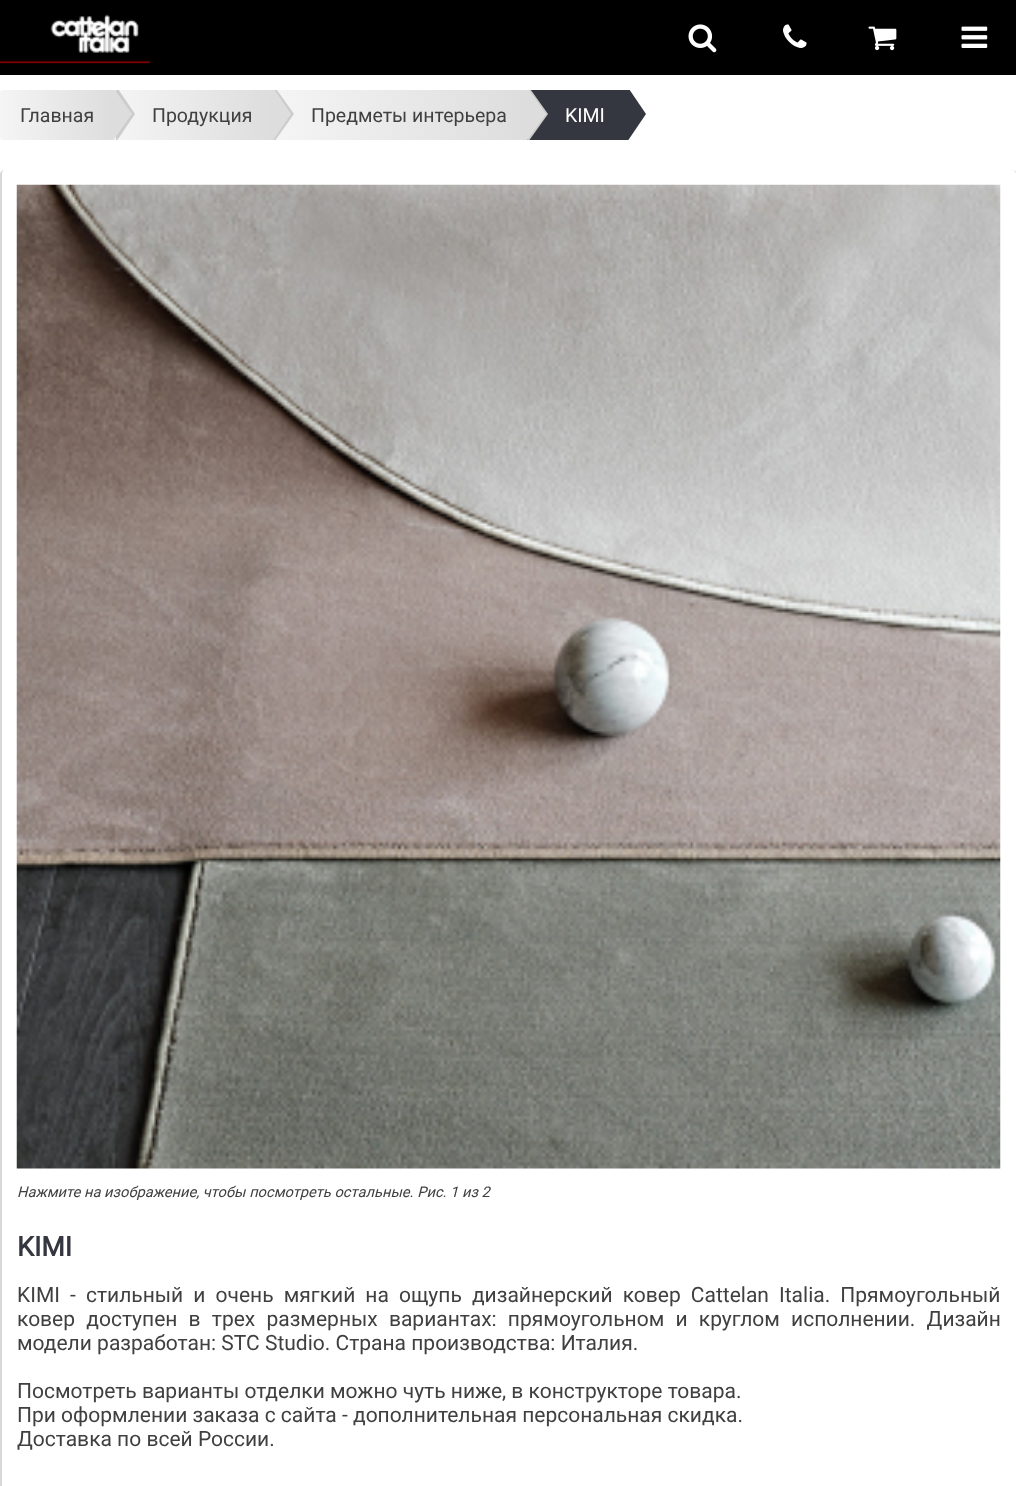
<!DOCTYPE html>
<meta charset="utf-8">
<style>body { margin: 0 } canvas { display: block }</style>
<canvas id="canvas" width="1016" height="1486"></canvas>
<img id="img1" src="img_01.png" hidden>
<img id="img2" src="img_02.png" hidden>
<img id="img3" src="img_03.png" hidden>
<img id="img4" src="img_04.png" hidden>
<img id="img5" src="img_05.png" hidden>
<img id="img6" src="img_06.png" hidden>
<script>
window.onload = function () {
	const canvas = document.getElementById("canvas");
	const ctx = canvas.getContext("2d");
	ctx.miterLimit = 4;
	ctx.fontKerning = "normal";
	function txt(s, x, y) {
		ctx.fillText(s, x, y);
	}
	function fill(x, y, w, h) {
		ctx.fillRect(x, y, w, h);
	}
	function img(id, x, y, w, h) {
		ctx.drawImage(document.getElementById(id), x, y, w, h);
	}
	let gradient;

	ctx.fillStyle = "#FFFFFF";
	fill(0, 0, 1016, 1486);
	ctx.fillStyle = "#000000";
	fill(0, 0, 1016, 75);
	img("img1", 0, 14, 150, 50);
	img("img2", 688, 24, 29, 29);
	img("img3", 783, 24, 24, 24);
	img("img4", 868, 26, 29, 25);
	img("img5", 961, 26, 27, 22);
	gradient = ctx.createLinearGradient(0, 115, 113, 115);
	gradient.addColorStop(0, "#F5F5F5");
	gradient.addColorStop(1, "#DDDDDD");
	ctx.fillStyle = gradient;
	ctx.beginPath();
	ctx.roundRect(0, 90, 113, 50, [3, 0, 0, 3]);
	ctx.fill();
	gradient = ctx.createLinearGradient(113, 115, 272, 115);
	gradient.addColorStop(0, "#F5F5F5");
	gradient.addColorStop(1, "#DDDDDD");
	ctx.fillStyle = gradient;
	fill(113, 90, 159, 50);
	ctx.save();
	ctx.beginPath();
	ctx.rect(0, 90, 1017, 50);
	ctx.clip();
	ctx.fillStyle = "#CCCCCC";
	ctx.beginPath();
	ctx.moveTo(116, 142);
	ctx.lineTo(116, 86);
	ctx.lineTo(135, 114);
	ctx.closePath();
	ctx.fill();
	ctx.fillStyle = "#DDDDDD";
	ctx.beginPath();
	ctx.moveTo(112, 142);
	ctx.lineTo(112, 86);
	ctx.lineTo(132, 114);
	ctx.closePath();
	ctx.fill();
	ctx.restore();
	gradient = ctx.createLinearGradient(272, 115, 527, 115);
	gradient.addColorStop(0, "#F5F5F5");
	gradient.addColorStop(1, "#DDDDDD");
	ctx.fillStyle = gradient;
	fill(273, 90, 253, 50);
	ctx.save();
	ctx.beginPath();
	ctx.rect(0, 90, 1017, 50);
	ctx.clip();
	ctx.fillStyle = "#CCCCCC";
	ctx.beginPath();
	ctx.moveTo(274, 142);
	ctx.lineTo(274, 86);
	ctx.lineTo(294, 114);
	ctx.closePath();
	ctx.fill();
	ctx.fillStyle = "#DDDDDD";
	ctx.beginPath();
	ctx.moveTo(272, 142);
	ctx.lineTo(272, 86);
	ctx.lineTo(291, 114);
	ctx.closePath();
	ctx.fill();
	ctx.restore();
	ctx.fillStyle = "#34373F";
	fill(527, 90, 99, 50);
	ctx.save();
	ctx.beginPath();
	ctx.rect(0, 90, 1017, 50);
	ctx.clip();
	ctx.fillStyle = "#CCCCCC";
	ctx.beginPath();
	ctx.moveTo(528, 142);
	ctx.lineTo(528, 86);
	ctx.lineTo(548, 114);
	ctx.closePath();
	ctx.fill();
	ctx.fillStyle = "#DDDDDD";
	ctx.beginPath();
	ctx.moveTo(526, 142);
	ctx.lineTo(526, 86);
	ctx.lineTo(546, 114);
	ctx.closePath();
	ctx.fill();
	ctx.fillStyle = "#34373F";
	ctx.beginPath();
	ctx.moveTo(627, 142);
	ctx.lineTo(627, 86);
	ctx.lineTo(646, 114);
	ctx.closePath();
	ctx.fill();
	ctx.beginPath();
	ctx.moveTo(626, 142);
	ctx.lineTo(626, 86);
	ctx.lineTo(645, 114);
	ctx.closePath();
	ctx.fill();
	ctx.restore();
	ctx.fillStyle = "#D8D8D8";
	ctx.beginPath();
	ctx.moveTo(4, 170);
	ctx.lineTo(1012, 170);
	ctx.bezierCurveTo(1015, 170, 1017, 172, 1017, 174);
	ctx.lineTo(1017, 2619);
	ctx.bezierCurveTo(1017, 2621, 1015, 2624, 1012, 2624);
	ctx.lineTo(4, 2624);
	ctx.bezierCurveTo(2, 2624, 0, 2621, 0, 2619);
	ctx.lineTo(0, 174);
	ctx.bezierCurveTo(0, 172, 2, 170, 4, 170);
	ctx.closePath();
	ctx.moveTo(4, 170);
	ctx.lineTo(1012, 170);
	ctx.bezierCurveTo(1014, 170, 1016, 172, 1016, 174);
	ctx.lineTo(1016, 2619);
	ctx.bezierCurveTo(1016, 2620, 1014, 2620, 1012, 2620);
	ctx.lineTo(4, 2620);
	ctx.bezierCurveTo(3, 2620, 2, 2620, 2, 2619);
	ctx.lineTo(2, 174);
	ctx.bezierCurveTo(2, 172, 3, 170, 4, 170);
	ctx.closePath();
	ctx.fill("evenodd");
	img("img6", 16, 184, 985, 985);
	ctx.font = "19.5px Roboto";
	ctx.fillStyle = "#404040";
	txt("Главная", 20, 122);
	txt("Продукция", 152, 122);
	txt("Предметы интерьера", 311, 122);
	ctx.fillStyle = "#FFFFFF";
	txt("KIMI", 565, 122);
	ctx.font = "italic 14.7px Roboto";
	ctx.fillStyle = "#404040";
	txt("Нажмите на изображение, чтобы посмотреть остальные. Рис. 1 из 2", 17, 1197);
	ctx.font = "bold 27px Roboto";
	ctx.fillStyle = "#34373F";
	txt("KIMI", 17, 1256);
	ctx.wordSpacing = "4.9px";
	ctx.font = "21px Roboto";
	ctx.fillStyle = "#404040";
	txt("KIMI - стильный и очень мягкий на ощупь дизайнерский ковер Cattelan Italia. Прямоугольный", 17, 1302);
	ctx.wordSpacing = "6px";
	txt("ковер доступен в трех размерных вариантах: прямоугольном и круглом исполнении. Дизайн", 17, 1326);
	ctx.wordSpacing = "0px";
	txt("модели разработан: STC Studio. Страна производства: Италия.", 17, 1350);
	txt("Посмотреть варианты отделки можно чуть ниже, в конструкторе товара.", 17, 1398);
	txt("При оформлении заказа с сайта - дополнительная персональная скидка.", 17, 1422);
	txt("Доставка по всей России.", 17, 1446);
};
</script>
